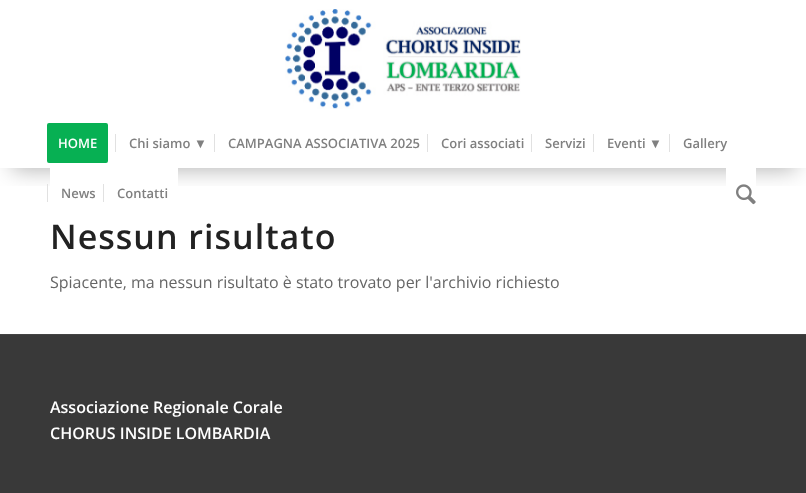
<!DOCTYPE html>
<meta charset="utf-8">
<style>body { margin: 0 } canvas { display: block }</style>
<canvas id="canvas" width="806" height="493"></canvas>
<img id="img1" src="img_01.png" hidden>
<img id="img2" src="img_02.png" hidden>
<script>
window.onload = function () {
	const canvas = document.getElementById("canvas");
	const ctx = canvas.getContext("2d");
	ctx.miterLimit = 4;
	ctx.fontKerning = "normal";
	function txt(s, x, y) {
		ctx.fillText(s, x, y);
	}
	function fill(x, y, w, h) {
		ctx.fillRect(x, y, w, h);
	}
	function img(id, x, y, w, h) {
		ctx.drawImage(document.getElementById(id), x, y, w, h);
	}

	ctx.fillStyle = "#FFFFFF";
	fill(0, 0, 806, 493);
	ctx.save();
	ctx.beginPath();
	ctx.rect(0, 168, 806, 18);
	ctx.clip();
	ctx.fillStyle = "rgba(0, 0, 0, 0.29)";
	ctx.filter = "blur(10.5px)";
	ctx.beginPath();
	ctx.rect(12, 24, 784, 146);
	ctx.fill();
	ctx.filter = "none";
	ctx.restore();
	img("img1", 285, 9, 236, 100);
	ctx.fillStyle = "#07B053";
	ctx.beginPath();
	ctx.roundRect(48, 124, 59, 38, 1);
	ctx.fill();
	ctx.strokeStyle = "#07B053";
	ctx.lineWidth = 2;
	ctx.stroke();
	ctx.fillStyle = "#E1E1E1";
	fill(115, 134, 1, 18);
	fill(214, 134, 1, 18);
	fill(427, 134, 1, 18);
	fill(531, 134, 1, 18);
	fill(593, 134, 1, 18);
	fill(669, 134, 1, 18);
	ctx.fillStyle = "#FFFFFF";
	fill(50, 168, 128, 21);
	ctx.fillStyle = "#E1E1E1";
	fill(47, 184, 1, 18);
	fill(103, 184, 1, 18);
	ctx.fillStyle = "#FFFFFF";
	fill(726, 168, 30, 21);
	img("img2", 736, 184, 20, 21);
	ctx.fillStyle = "#393939";
	fill(0, 335, 806, 158);
	ctx.fillStyle = "#444444";
	fill(0, 334, 806, 1);
	ctx.font = "600 13px Open Sans";
	ctx.fillStyle = "#FFFFFF";
	txt("HOME", 58, 148);
	ctx.fillStyle = "#808080";
	txt("Chi siamo", 129, 148);
	ctx.font = "bold 13px Liberation Sans";
	txt("▼", 194, 148);
	ctx.font = "600 13px Open Sans";
	txt("CAMPAGNA ASSOCIATIVA 2025", 228, 148);
	txt("Cori associati", 441, 148);
	txt("Servizi", 545, 148);
	txt("Eventi", 607, 148);
	ctx.font = "bold 13px Liberation Sans";
	txt("▼", 649, 148);
	ctx.font = "600 13px Open Sans";
	txt("Gallery", 683, 148);
	txt("News", 61, 198);
	txt("Contatti", 117, 198);
	ctx.letterSpacing = "1px";
	ctx.font = "600 34px Open Sans";
	ctx.fillStyle = "#222222";
	txt("Nessun risultato", 50, 249);
	ctx.letterSpacing = "0px";
	ctx.font = "16px Open Sans";
	ctx.fillStyle = "#666666";
	txt("Spiacente, ma nessun risultato è stato trovato per l'archivio richiesto", 50, 288);
	ctx.font = "600 16px Open Sans";
	ctx.fillStyle = "#FFFFFF";
	txt("Associazione Regionale Corale", 50, 413);
	txt("CHORUS INSIDE LOMBARDIA", 50, 439);
};
</script>
